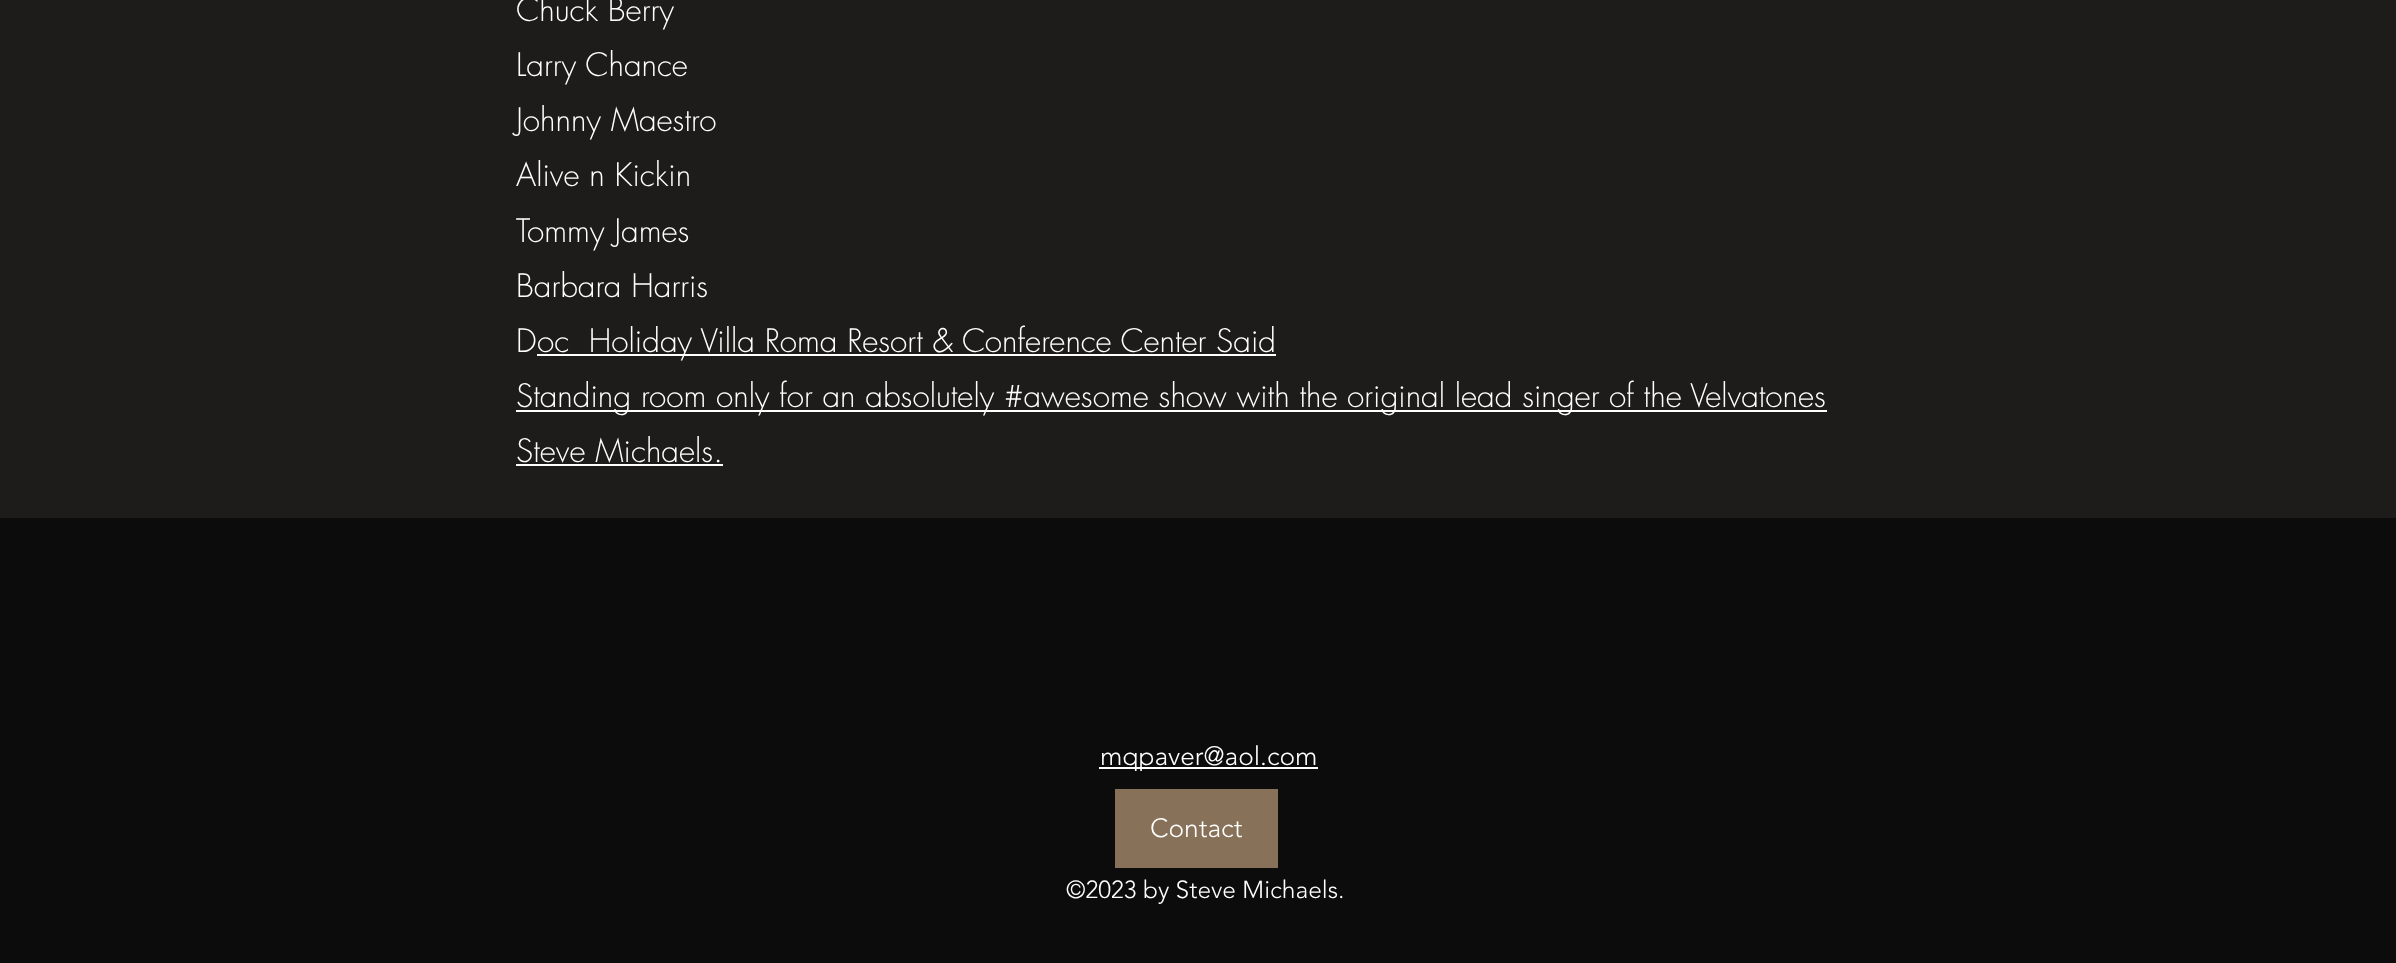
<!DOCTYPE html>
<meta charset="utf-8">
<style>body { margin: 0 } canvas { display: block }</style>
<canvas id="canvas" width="2396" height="963"></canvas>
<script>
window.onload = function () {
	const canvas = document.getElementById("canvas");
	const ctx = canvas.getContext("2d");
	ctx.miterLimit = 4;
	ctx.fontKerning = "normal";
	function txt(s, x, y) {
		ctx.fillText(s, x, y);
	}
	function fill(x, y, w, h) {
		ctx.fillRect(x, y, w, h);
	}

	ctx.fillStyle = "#0D0C0C";
	fill(0, 0, 2396, 963);
	ctx.fillStyle = "#1E1B1B";
	fill(0, 0, 2396, 518);
	ctx.fillStyle = "#FFFFFF";
	fill(537, 354, 739, 2);
	fill(516, 410, 1311, 2);
	fill(516, 464, 207, 2);
	fill(1099, 767, 219, 2);
	ctx.fillStyle = "#887159";
	fill(1115, 789, 163, 79);
	ctx.font = "300 31.5px futura";
	ctx.fillStyle = "#FFFFFF";
	txt("Chuck Berry", 516, 21);
	txt("Larry Chance", 516, 76);
	txt("Johnny Maestro", 516, 131);
	txt("Alive n Kickin", 516, 186);
	txt("Tommy James", 516, 242);
	txt("Barbara Harris", 516, 297);
	txt("D", 516, 352);
	txt("oc  Holiday Villa Roma Resort & Conference Center Said", 537, 352);
	txt("Standing room only for an absolutely #awesome show with the original lead singer of the Velvatones", 516, 407);
	txt("Steve Michaels.", 516, 462);
	ctx.font = "300 26.25px 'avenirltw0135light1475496'";
	txt("mqpaver@aol.com", 1100, 765);
	txt("Contact", 1150, 837);
	ctx.font = "300 24.5px 'avenirltw0135light1475496'";
	txt("©2023 by Steve Michaels.", 1066, 898);
};
</script>
